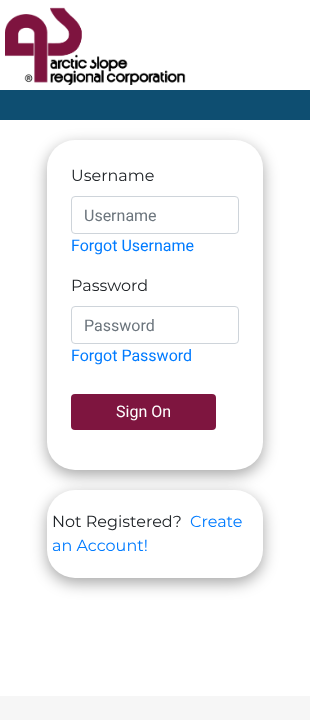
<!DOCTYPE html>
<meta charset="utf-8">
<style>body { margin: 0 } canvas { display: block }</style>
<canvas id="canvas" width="310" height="720"></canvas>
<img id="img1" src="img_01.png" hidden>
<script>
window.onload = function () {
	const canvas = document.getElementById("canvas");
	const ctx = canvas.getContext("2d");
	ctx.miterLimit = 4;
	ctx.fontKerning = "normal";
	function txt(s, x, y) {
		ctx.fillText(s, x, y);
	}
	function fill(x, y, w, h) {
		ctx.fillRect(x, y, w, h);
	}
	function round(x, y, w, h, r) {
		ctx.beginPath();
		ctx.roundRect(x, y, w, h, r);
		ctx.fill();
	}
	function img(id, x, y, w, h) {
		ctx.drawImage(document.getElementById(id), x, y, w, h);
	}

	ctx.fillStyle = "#FFFFFF";
	fill(0, 0, 310, 720);
	img("img1", 5, 7, 181, 78);
	ctx.fillStyle = "#0E4E71";
	fill(0, 90, 310, 30);
	ctx.fillStyle = "rgba(0, 0, 0, 0.35)";
	ctx.filter = "blur(7.5px)";
	ctx.beginPath();
	ctx.roundRect(47, 145, 216, 330, 28);
	ctx.fill();
	ctx.filter = "none";
	ctx.fillStyle = "#FFFFFF";
	round(47, 140, 216, 330, 28);
	ctx.beginPath();
	ctx.roundRect(71.5, 196.5, 167, 37, 3.5);
	ctx.strokeStyle = "#CED4DA";
	ctx.stroke();
	ctx.beginPath();
	ctx.roundRect(71.5, 306.5, 167, 37, 3.5);
	ctx.stroke();
	ctx.fillStyle = "#7E153F";
	round(71, 394, 145, 36, 4);
	ctx.fillStyle = "rgba(0, 0, 0, 0.35)";
	ctx.filter = "blur(7.5px)";
	ctx.beginPath();
	ctx.roundRect(47, 495, 216, 88, 28);
	ctx.fill();
	ctx.filter = "none";
	ctx.fillStyle = "#FFFFFF";
	round(47, 490, 216, 88, 28);
	ctx.fillStyle = "#F6F6F6";
	fill(0, 696, 310, 24);
	ctx.font = "16px Montserrat";
	ctx.fillStyle = "#212529";
	txt("Username", 71, 181);
	ctx.font = "16px Roboto";
	ctx.fillStyle = "#6C757D";
	txt("Username", 84, 221);
	ctx.fillStyle = "#007BFF";
	txt("Forgot Username", 71, 251);
	ctx.font = "16px Montserrat";
	ctx.fillStyle = "#212529";
	txt("Password", 71, 291);
	ctx.font = "16px Roboto";
	ctx.fillStyle = "#6C757D";
	txt("Password", 84, 331);
	ctx.fillStyle = "#007BFF";
	txt("Forgot Password", 71, 361);
	ctx.fillStyle = "#FFFFFF";
	txt("Sign On", 116, 417);
	ctx.font = "16px Montserrat";
	ctx.fillStyle = "#212529";
	txt("Not Registered?", 52, 527);
	ctx.fillStyle = "#007BFF";
	txt("Create", 190, 527);
	txt("an Account!", 52, 551);
};
</script>
